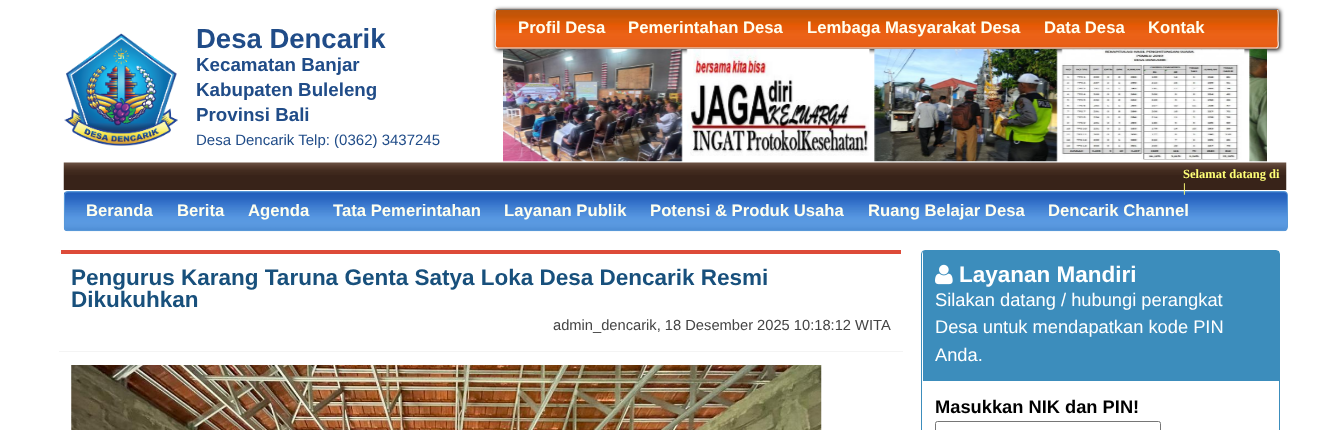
<!DOCTYPE html>
<meta charset="utf-8">
<style>body { margin: 0 } canvas { display: block }</style>
<canvas id="canvas" width="1336" height="430"></canvas>
<img id="img1" src="img_01.png" hidden>
<img id="img2" src="img_02.png" hidden>
<img id="img3" src="img_03.png" hidden>
<img id="img4" src="img_04.png" hidden>
<img id="img5" src="img_05.png" hidden>
<img id="img6" src="img_06.png" hidden>
<img id="img7" src="img_07.png" hidden>
<img id="img8" src="img_08.png" hidden>
<img id="img9" src="img_09.png" hidden>
<img id="img10" src="img_10.png" hidden>
<img id="img11" src="img_11.png" hidden>
<script>
window.onload = function () {
	const canvas = document.getElementById("canvas");
	const ctx = canvas.getContext("2d");
	ctx.miterLimit = 4;
	ctx.fontKerning = "normal";
	function txt(s, x, y) {
		ctx.fillText(s, x, y);
	}
	function fill(x, y, w, h) {
		ctx.fillRect(x, y, w, h);
	}
	function round(x, y, w, h, r) {
		ctx.beginPath();
		ctx.roundRect(x, y, w, h, r);
		ctx.fill();
	}
	function img(id, x, y, w, h) {
		ctx.drawImage(document.getElementById(id), x, y, w, h);
	}

	ctx.fillStyle = "#FFFFFF";
	fill(0, 0, 1336, 430);
	img("img1", 64, 33, 114, 113);
	ctx.fillStyle = "#000000";
	ctx.filter = "blur(2px)";
	ctx.beginPath();
	ctx.roundRect(496, 10, 784, 40, 2.5);
	ctx.fill();
	ctx.filter = "none";
	img("img2", 495, 8, 784, 41);
	ctx.beginPath();
	ctx.moveTo(496, 10);
	ctx.lineTo(497.5, 9.5);
	ctx.lineTo(1276, 9.5);
	ctx.lineTo(1277.5, 10);
	ctx.strokeStyle = "#777777";
	ctx.lineWidth = 1.2;
	ctx.stroke();
	ctx.beginPath();
	ctx.moveTo(1277.5, 10);
	ctx.bezierCurveTo(1279, 11.5, 1278, 26, 1278, 29);
	ctx.lineTo(1278, 40.5);
	ctx.bezierCurveTo(1278, 41, 1279.5, 48, 1276, 48);
	ctx.lineTo(497.5, 48);
	ctx.bezierCurveTo(494, 48, 495.5, 41, 495.5, 40.5);
	ctx.lineTo(495.5, 29);
	ctx.bezierCurveTo(495.5, 26, 494.5, 11.5, 496, 10);
	ctx.strokeStyle = "#EEEEEE";
	ctx.stroke();
	img("img3", 503, 49, 180, 113);
	img("img4", 686, 49, 185, 107);
	img("img5", 874, 49, 184, 113);
	img("img6", 1061, 49, 185, 111);
	img("img7", 1249, 49, 18, 113);
	img("img8", 63, 162, 1224, 28);
	img("img9", 63, 191, 1225, 41);
	ctx.beginPath();
	ctx.roundRect(64.5, 191.5, 1223, 39, 3.5);
	ctx.strokeStyle = "#5898D8";
	ctx.lineWidth = 1;
	ctx.stroke();
	ctx.fillStyle = "rgba(0, 0, 0, 0.1)";
	ctx.filter = "blur(0.5px)";
	ctx.beginPath();
	ctx.roundRect(59, 251, 844, 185, 4);
	ctx.fill();
	ctx.filter = "none";
	ctx.fillStyle = "#FFFFFF";
	round(59, 250, 844, 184, 4);
	ctx.fillStyle = "#DD4B39";
	fill(61, 250, 840, 4);
	ctx.fillStyle = "#F4F4F4";
	fill(59, 351, 844, 1);
	img("img10", 71, 365, 751, 65);
	ctx.beginPath();
	ctx.roundRect(921.5, 250.5, 358, 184, 3.5);
	ctx.strokeStyle = "#3C8DBC";
	ctx.stroke();
	ctx.fillStyle = "#3C8DBC";
	fill(923, 251, 356, 130);
	img("img11", 935, 264, 18, 21);
	ctx.beginPath();
	ctx.roundRect(935.5, 421.5, 225, 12, 2);
	ctx.strokeStyle = "#767676";
	ctx.stroke();
	ctx.font = "bold 27.5px Liberation Sans";
	ctx.fillStyle = "#204C88";
	txt("Desa Dencarik", 196, 48);
	ctx.font = "bold 18.75px Liberation Sans";
	txt("Kecamatan Banjar", 196, 71);
	txt("Kabupaten Buleleng", 196, 96);
	txt("Provinsi Bali", 196, 121);
	ctx.font = "15px Liberation Sans";
	txt("Desa Dencarik Telp: (0362) 3437245", 196, 145);
	ctx.font = "bold 16.7px Liberation Sans";
	ctx.fillStyle = "#FFFFEF";
	txt("Profil Desa", 518, 33);
	txt("Pemerintahan Desa", 628, 33);
	txt("Lembaga Masyarakat Desa", 807, 33);
	txt("Data Desa", 1044, 33);
	txt("Kontak", 1148, 33);
	ctx.font = "bold 12.5px Liberation Serif";
	ctx.fillStyle = "#FEFE77";
	txt("Selamat datang di", 1183, 178);
	txt("|", 1183, 192);
	ctx.font = "bold 16.7px Liberation Sans";
	ctx.fillStyle = "#FFFFEF";
	txt("Beranda", 86, 216);
	txt("Berita", 177, 216);
	txt("Agenda", 248, 216);
	txt("Tata Pemerintahan", 333, 216);
	txt("Layanan Publik", 504, 216);
	txt("Potensi & Produk Usaha", 650, 216);
	txt("Ruang Belajar Desa", 868, 216);
	txt("Dencarik Channel", 1048, 216);
	ctx.font = "bold 22.5px Liberation Sans";
	ctx.fillStyle = "#18507C";
	txt("Pengurus Karang Taruna Genta Satya Loka Desa Dencarik Resmi", 71, 285);
	txt("Dikukuhkan", 71, 307);
	ctx.font = "14.7px Liberation Sans";
	ctx.fillStyle = "#444444";
	txt("admin_dencarik, 18 Desember 2025 10:18:12 WITA", 553, 330);
	ctx.font = "bold 22.5px Liberation Sans";
	ctx.fillStyle = "#FFFFFF";
	txt("Layanan Mandiri", 959, 282);
	ctx.font = "18.3px Liberation Sans";
	txt("Silakan datang / hubungi perangkat", 935, 306);
	txt("Desa untuk mendapatkan kode PIN", 935, 333);
	txt("Anda.", 935, 361);
	ctx.font = "bold 18.3px Liberation Sans";
	ctx.fillStyle = "#000000";
	txt("Masukkan NIK dan PIN!", 935, 413);
};
</script>
